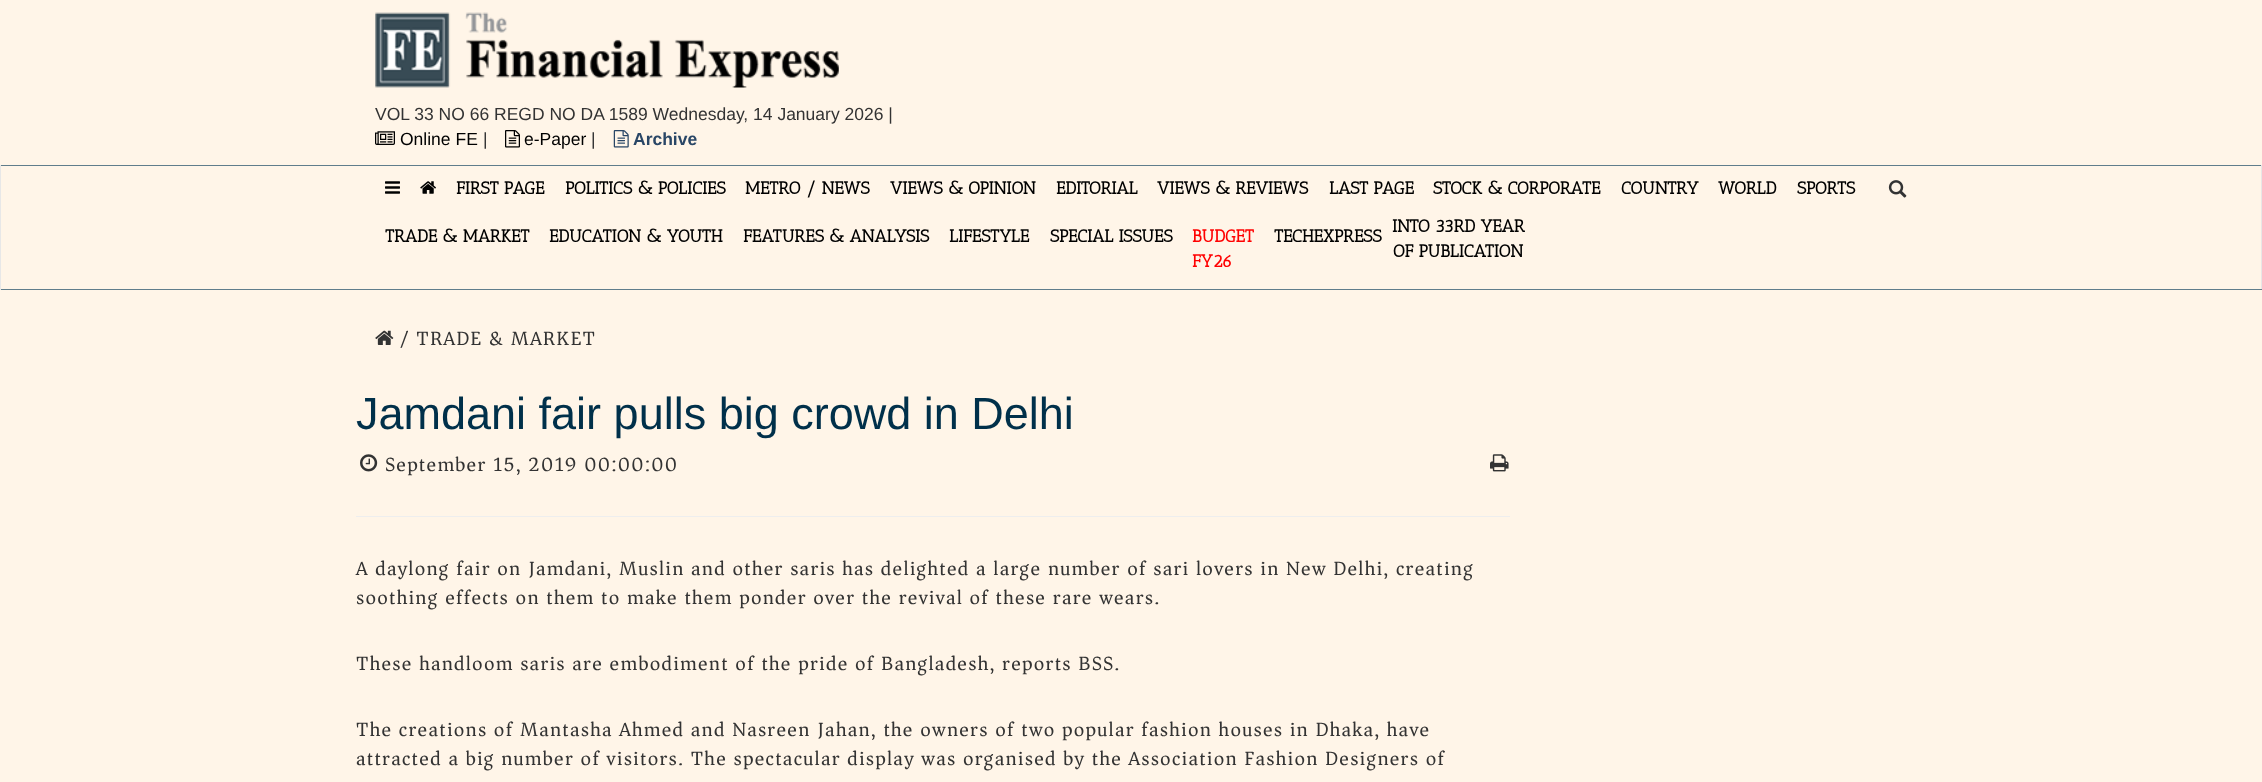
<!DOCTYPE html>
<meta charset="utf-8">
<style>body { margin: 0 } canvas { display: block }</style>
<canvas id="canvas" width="2262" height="782"></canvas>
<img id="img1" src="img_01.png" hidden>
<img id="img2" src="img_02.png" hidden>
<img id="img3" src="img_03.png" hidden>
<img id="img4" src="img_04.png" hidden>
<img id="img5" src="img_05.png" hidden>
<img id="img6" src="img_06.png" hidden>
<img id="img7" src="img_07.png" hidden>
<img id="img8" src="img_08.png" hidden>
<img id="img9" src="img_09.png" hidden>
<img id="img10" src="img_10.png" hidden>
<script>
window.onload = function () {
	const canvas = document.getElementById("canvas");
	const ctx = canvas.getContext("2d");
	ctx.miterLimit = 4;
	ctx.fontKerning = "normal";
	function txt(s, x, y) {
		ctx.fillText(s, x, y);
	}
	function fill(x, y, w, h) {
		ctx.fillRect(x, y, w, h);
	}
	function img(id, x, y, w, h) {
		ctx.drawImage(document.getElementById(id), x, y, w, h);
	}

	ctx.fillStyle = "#FFF5E8";
	fill(0, 0, 2262, 782);
	img("img1", 375, 12, 464, 76);
	img("img2", 375, 131, 20, 14);
	img("img3", 505, 130, 15, 18);
	img("img4", 613, 130, 16, 18);
	ctx.fillStyle = "#607D8B";
	fill(0, 165, 2262, 1);
	ctx.fillStyle = "#E7E7E7";
	fill(2261, 165, 1, 125);
	ctx.fillStyle = "#607D8B";
	fill(0, 289, 2262, 1);
	ctx.fillStyle = "#E7E7E7";
	fill(0, 165, 1, 125);
	img("img5", 385, 181, 15, 13);
	img("img6", 420, 181, 16, 13);
	img("img7", 1888, 180, 19, 18);
	img("img8", 375, 330, 19, 15);
	img("img9", 360, 454, 18, 18);
	img("img10", 1490, 454, 19, 18);
	ctx.fillStyle = "#EEEEEE";
	fill(356, 516, 1154, 1);
	ctx.font = "17.5px Liberation Sans";
	ctx.fillStyle = "#333333";
	txt("VOL 33 NO 66 REGD NO DA 1589 Wednesday, 14 January 2026 |", 375, 120);
	ctx.fillStyle = "#000000";
	txt("Online FE", 400, 145);
	ctx.fillStyle = "#333333";
	txt("|", 483, 145);
	ctx.fillStyle = "#000000";
	txt("e-Paper", 524, 145);
	ctx.fillStyle = "#333333";
	txt("|", 591, 145);
	ctx.font = "bold 17.5px Liberation Sans";
	ctx.fillStyle = "#294666";
	txt("Archive", 633, 145);
	ctx.font = "bold 17.5px Antic Slab";
	ctx.fillStyle = "#000000";
	txt("FIRST PAGE", 456, 194);
	txt("POLITICS & POLICIES", 565, 194);
	txt("METRO / NEWS", 745, 194);
	txt("VIEWS & OPINION", 890, 194);
	txt("EDITORIAL", 1056, 194);
	txt("VIEWS & REVIEWS", 1157, 194);
	txt("LAST PAGE", 1329, 194);
	txt("STOCK & CORPORATE", 1433, 194);
	txt("COUNTRY", 1621, 194);
	txt("WORLD", 1718, 194);
	txt("SPORTS", 1797, 194);
	txt("TRADE & MARKET", 385, 242);
	txt("EDUCATION & YOUTH", 549, 242);
	txt("FEATURES & ANALYSIS", 743, 242);
	txt("LIFESTYLE", 949, 242);
	txt("SPECIAL ISSUES", 1050, 242);
	ctx.fillStyle = "#FF0000";
	txt("BUDGET", 1192, 242);
	txt("FY26", 1192, 267);
	ctx.fillStyle = "#000000";
	txt("TECHEXPRESS", 1274, 242);
	txt("INTO 33RD YEAR", 1392, 232);
	txt("OF PUBLICATION", 1393, 257);
	ctx.letterSpacing = "1.25px";
	ctx.font = "20px Asar";
	ctx.fillStyle = "#333333";
	txt("/ TRADE & MARKET", 400, 345);
	ctx.letterSpacing = "0px";
	ctx.font = "45px Liberation Sans";
	ctx.fillStyle = "#00304A";
	txt("Jamdani fair pulls big crowd in Delhi", 356, 429);
	ctx.letterSpacing = "1.25px";
	ctx.font = "20px Asar";
	ctx.fillStyle = "#333333";
	txt("September 15, 2019 00:00:00", 385, 471);
	txt("A daylong fair on Jamdani, Muslin and other saris has delighted a large number of sari lovers in New Delhi, creating", 356, 575);
	txt("soothing effects on them to make them ponder over the revival of these rare wears.", 356, 604);
	txt("These handloom saris are embodiment of the pride of Bangladesh, reports BSS.", 356, 670);
	txt("The creations of Mantasha Ahmed and Nasreen Jahan, the owners of two popular fashion houses in Dhaka, have", 356, 736);
	txt("attracted a big number of visitors. The spectacular display was organised by the Association Fashion Designers of", 356, 765);
};
</script>
